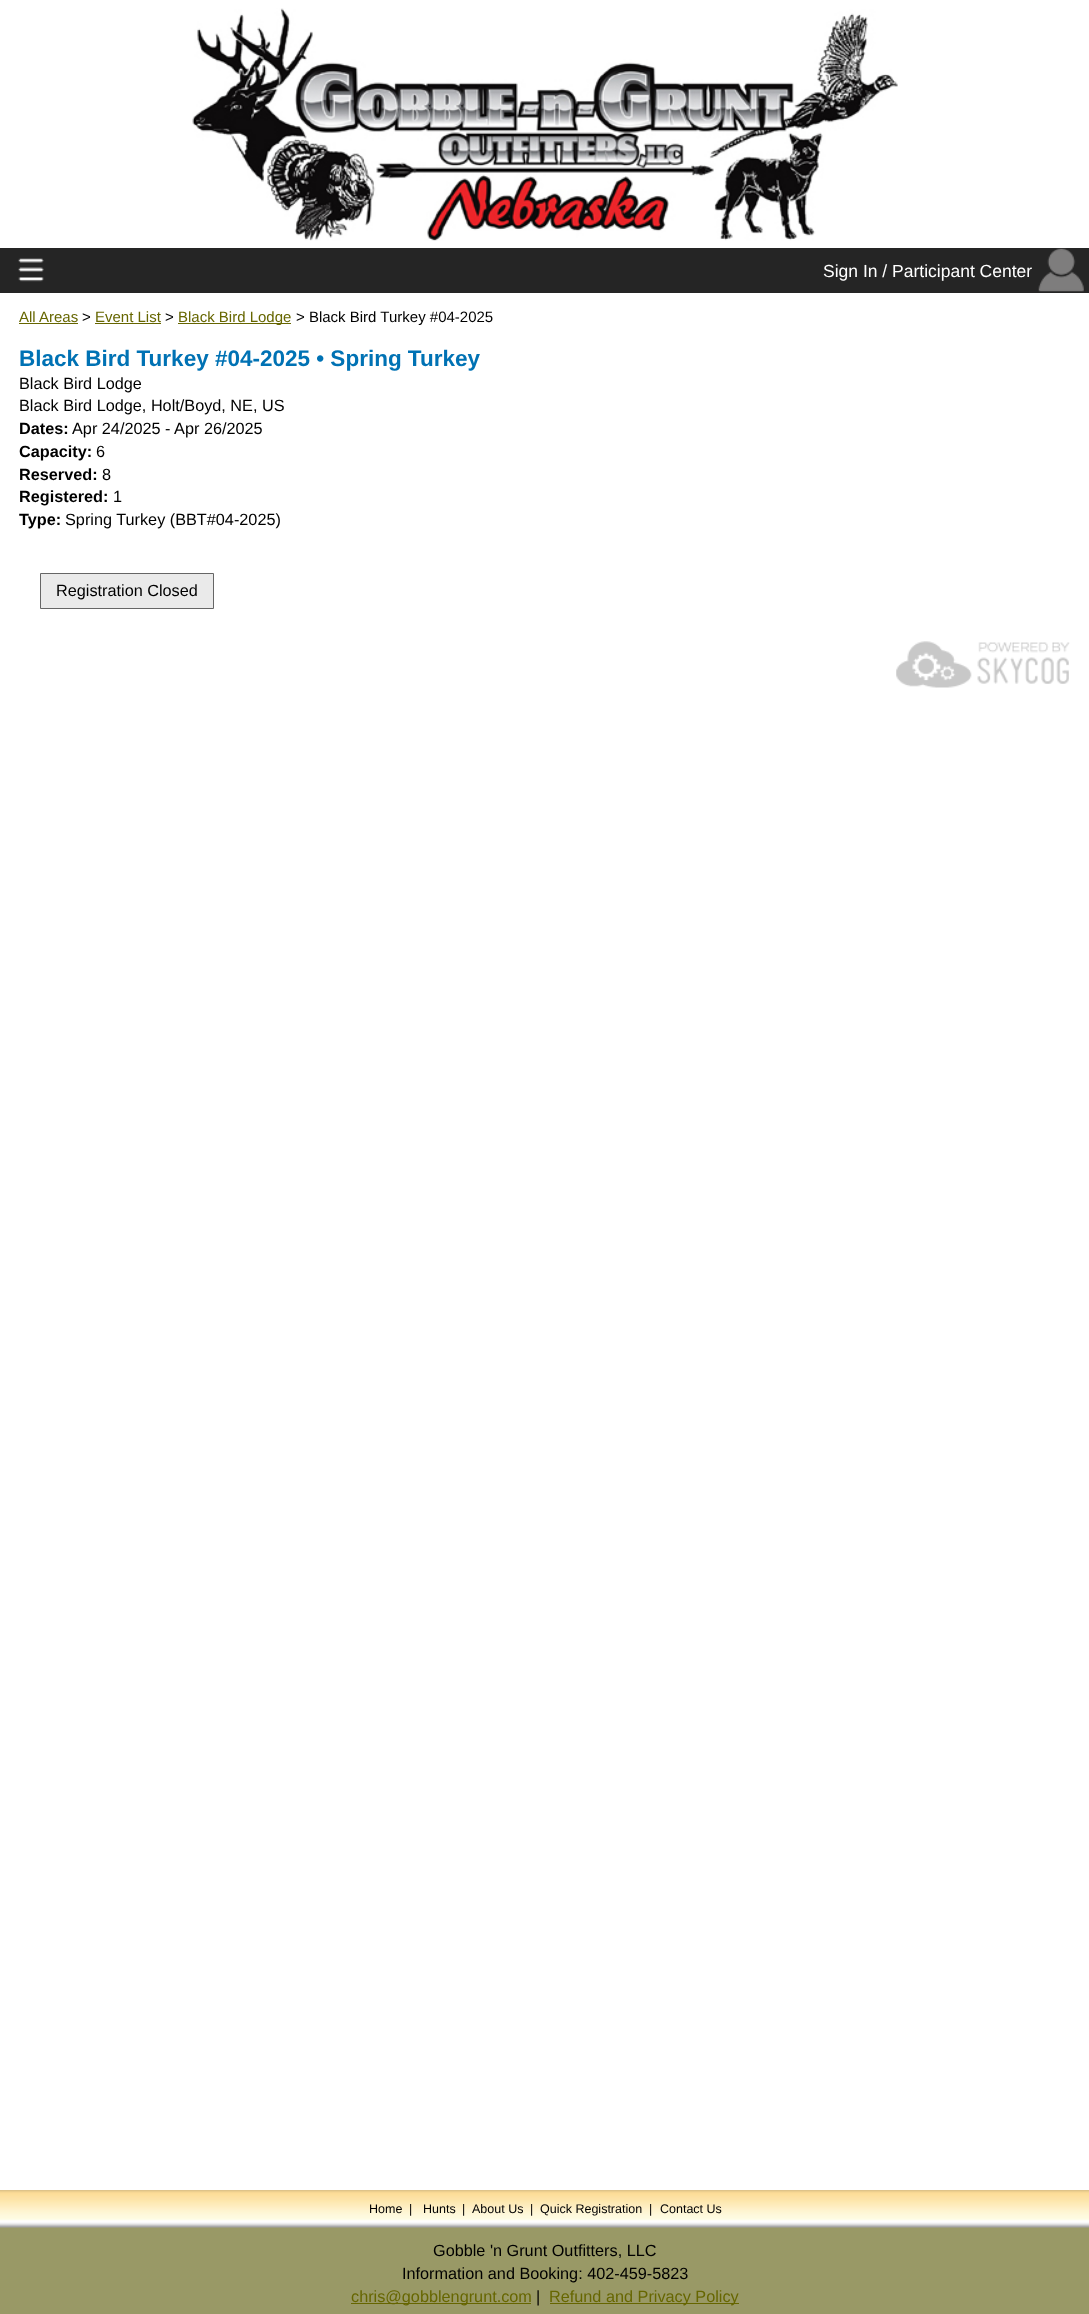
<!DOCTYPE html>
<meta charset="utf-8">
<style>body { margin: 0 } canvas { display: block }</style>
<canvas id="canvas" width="1089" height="2314"></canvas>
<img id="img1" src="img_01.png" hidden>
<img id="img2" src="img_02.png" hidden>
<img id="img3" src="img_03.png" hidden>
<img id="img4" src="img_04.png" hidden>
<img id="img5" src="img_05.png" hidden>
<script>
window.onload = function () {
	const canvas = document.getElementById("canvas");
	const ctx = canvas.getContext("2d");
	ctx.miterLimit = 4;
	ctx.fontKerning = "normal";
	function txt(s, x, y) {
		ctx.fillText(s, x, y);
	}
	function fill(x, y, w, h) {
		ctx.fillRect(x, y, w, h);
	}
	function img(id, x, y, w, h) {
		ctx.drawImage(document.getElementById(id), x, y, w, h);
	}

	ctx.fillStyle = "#FFFFFF";
	fill(0, 0, 1089, 2314);
	img("img1", 192, 8, 706, 233);
	ctx.fillStyle = "#252525";
	fill(0, 248, 1089, 45);
	img("img2", 18, 258, 26, 24);
	img("img3", 1038, 248, 46, 44);
	ctx.fillStyle = "#666600";
	fill(19, 323, 59, 1);
	fill(95, 323, 66, 1);
	fill(178, 323, 113, 1);
	ctx.fillStyle = "#EAEAEA";
	ctx.beginPath();
	ctx.rect(40.5, 573.5, 173, 35);
	ctx.fill();
	ctx.strokeStyle = "#666666";
	ctx.stroke();
	img("img4", 896, 641, 174, 47);
	ctx.fillStyle = "#999966";
	fill(0, 2227, 1089, 87);
	img("img5", 0, 2190, 1089, 38);
	ctx.fillStyle = "#666600";
	fill(351, 2303, 180, 1);
	fill(550, 2303, 189, 1);
	ctx.font = "17.5px Liberation Sans";
	ctx.fillStyle = "#FFFFFF";
	txt("Sign In / Participant Center", 823, 277);
	ctx.font = "15px Liberation Sans";
	ctx.fillStyle = "#666600";
	txt("All Areas", 19, 322);
	ctx.fillStyle = "#000000";
	txt(">", 82, 322);
	ctx.fillStyle = "#666600";
	txt("Event List", 95, 322);
	ctx.fillStyle = "#000000";
	txt(">", 165, 322);
	ctx.fillStyle = "#666600";
	txt("Black Bird Lodge", 178, 322);
	ctx.fillStyle = "#000000";
	txt("> Black Bird Turkey #04-2025", 296, 322);
	ctx.font = "bold 22.5px Liberation Sans";
	ctx.fillStyle = "#0072B4";
	txt("Black Bird Turkey #04-2025 • Spring Turkey", 19, 366);
	ctx.font = "16.25px Liberation Sans";
	ctx.fillStyle = "#000000";
	txt("Black Bird Lodge", 19, 389);
	txt("Black Bird Lodge, Holt/Boyd, NE, US", 19, 411);
	ctx.font = "bold 16.25px Liberation Sans";
	txt("Dates:", 19, 434);
	ctx.font = "16.25px Liberation Sans";
	txt("Apr 24/2025 - Apr 26/2025", 72, 434);
	ctx.font = "bold 16.25px Liberation Sans";
	txt("Capacity:", 19, 457);
	ctx.font = "16.25px Liberation Sans";
	txt("6", 96, 457);
	ctx.font = "bold 16.25px Liberation Sans";
	txt("Reserved:", 19, 480);
	ctx.font = "16.25px Liberation Sans";
	txt("8", 102, 480);
	ctx.font = "bold 16.25px Liberation Sans";
	txt("Registered:", 19, 502);
	ctx.font = "16.25px Liberation Sans";
	txt("1", 113, 502);
	ctx.font = "bold 16.25px Liberation Sans";
	txt("Type:", 19, 525);
	ctx.font = "16.25px Liberation Sans";
	txt("Spring Turkey (BBT#04-2025)", 65, 525);
	txt("Registration Closed", 56, 596);
	ctx.font = "12.5px Liberation Sans";
	txt("Home", 369, 2213);
	txt("|", 409, 2213);
	txt("Hunts", 423, 2213);
	txt("|", 462, 2213);
	txt("About Us", 472, 2213);
	txt("|", 530, 2213);
	txt("Quick Registration", 540, 2213);
	txt("|", 649, 2213);
	txt("Contact Us", 660, 2213);
	ctx.font = "16.25px Liberation Sans";
	txt("Gobble 'n Grunt Outfitters, LLC", 433, 2256);
	txt("Information and Booking: 402-459-5823", 402, 2279);
	ctx.fillStyle = "#666600";
	txt("chris@gobblengrunt.com", 351, 2302);
	ctx.fillStyle = "#000000";
	txt("|", 536, 2302);
	ctx.fillStyle = "#666600";
	txt("Refund and Privacy Policy", 549, 2302);
};
</script>
